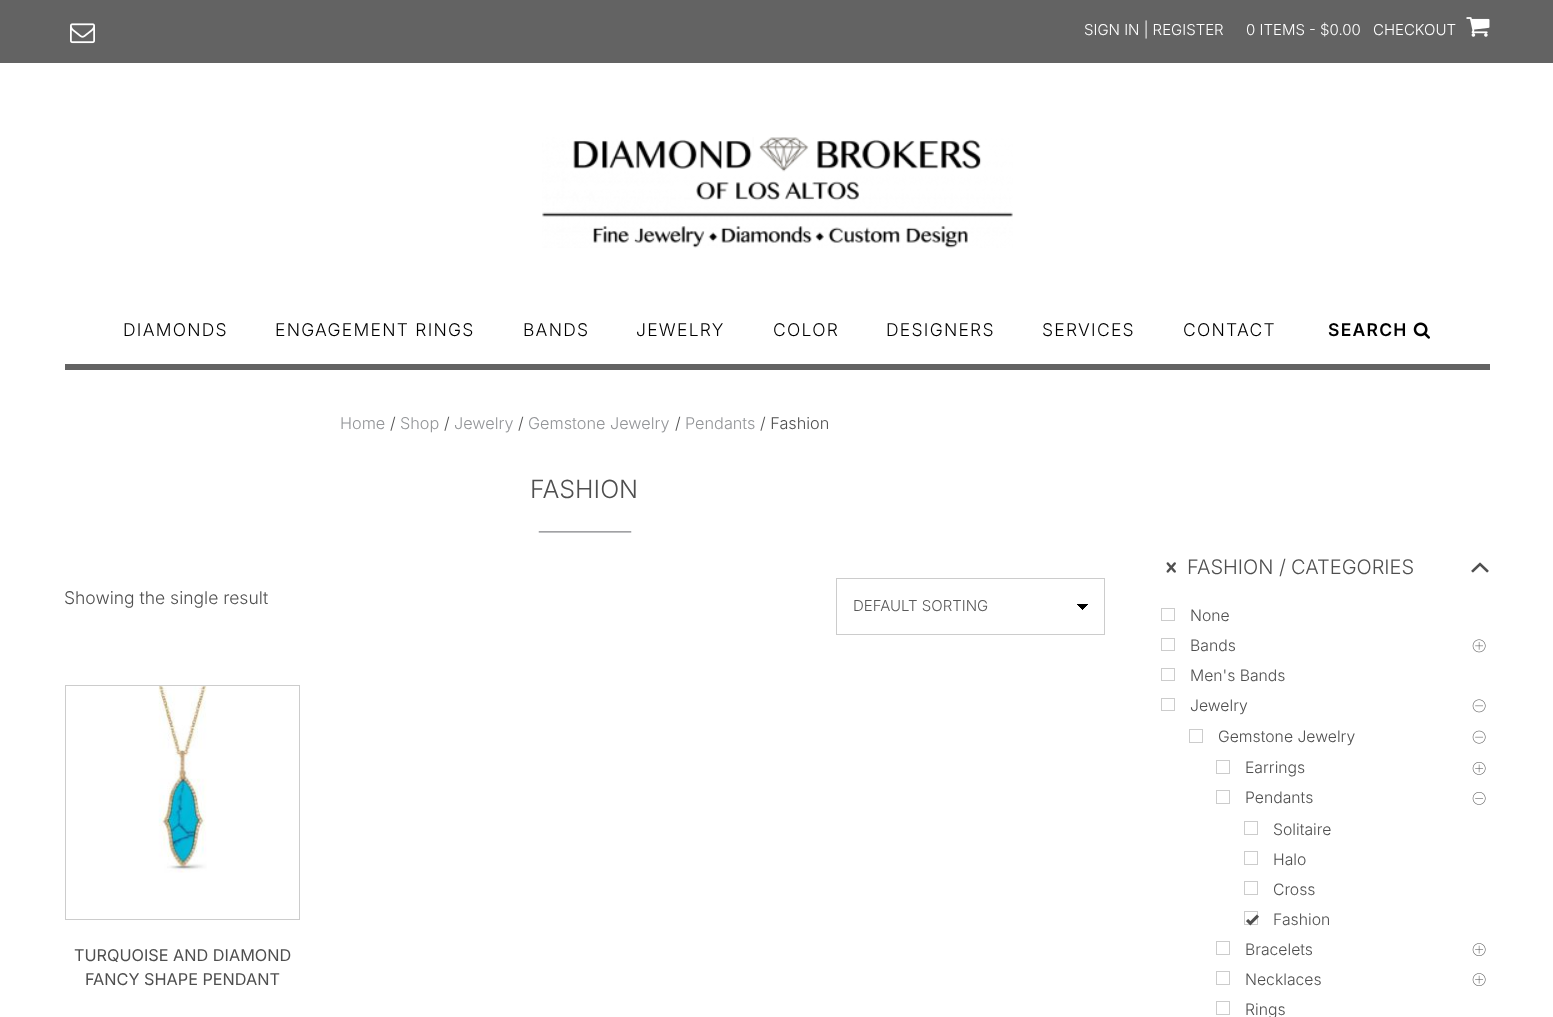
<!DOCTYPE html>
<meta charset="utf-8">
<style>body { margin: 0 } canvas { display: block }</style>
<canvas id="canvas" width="1553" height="1017"></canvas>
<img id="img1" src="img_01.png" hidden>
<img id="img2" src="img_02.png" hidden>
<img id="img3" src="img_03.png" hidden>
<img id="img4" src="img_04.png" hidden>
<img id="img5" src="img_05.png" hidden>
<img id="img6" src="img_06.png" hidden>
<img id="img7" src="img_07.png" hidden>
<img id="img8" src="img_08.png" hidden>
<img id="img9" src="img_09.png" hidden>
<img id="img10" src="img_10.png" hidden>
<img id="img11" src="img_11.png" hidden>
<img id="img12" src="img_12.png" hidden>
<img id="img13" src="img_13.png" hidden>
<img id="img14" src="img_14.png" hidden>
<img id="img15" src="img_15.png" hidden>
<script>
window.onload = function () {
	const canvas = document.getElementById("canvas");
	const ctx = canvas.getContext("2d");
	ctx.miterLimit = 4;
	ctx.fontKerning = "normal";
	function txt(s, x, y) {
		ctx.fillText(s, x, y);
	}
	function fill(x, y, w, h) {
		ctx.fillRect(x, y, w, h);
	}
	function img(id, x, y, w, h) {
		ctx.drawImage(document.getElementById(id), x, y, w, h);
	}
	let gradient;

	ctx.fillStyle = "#FFFFFF";
	fill(0, 0, 1553, 1017);
	ctx.fillStyle = "#636363";
	fill(0, 0, 1553, 63);
	img("img1", 70, 23, 25, 21);
	img("img2", 1466, 17, 24, 20);
	img("img3", 542, 137, 471, 111);
	fill(65, 364, 1425, 6);
	img("img4", 1413, 322, 17, 17);
	img("img5", 538, 531, 94, 2);
	gradient = ctx.createLinearGradient(1083, 604, 1089, 610);
	gradient.addColorStop(0.5, "#000000");
	gradient.addColorStop(0.5, "#FFFFFF");
	ctx.fillStyle = gradient;
	fill(1083, 604, 6, 5);
	gradient = ctx.createLinearGradient(1076, 610, 1083, 604);
	gradient.addColorStop(0.5, "#FFFFFF");
	gradient.addColorStop(0.5, "#000000");
	ctx.fillStyle = gradient;
	fill(1076, 604, 7, 6);
	ctx.strokeStyle = "#CCCCCC";
	ctx.strokeRect(836.5, 578.5, 268, 56);
	ctx.strokeRect(65.5, 685.5, 234, 234);
	img("img6", 158, 686, 49, 187);
	img("img7", 1166, 562, 10, 11);
	img("img8", 1471, 562, 18, 11);
	ctx.strokeRect(1161.5, 608.5, 13, 12);
	ctx.strokeRect(1161.5, 638.5, 13, 12);
	img("img9", 1472, 639, 14, 14);
	ctx.strokeRect(1161.5, 668.5, 13, 12);
	ctx.strokeRect(1161.5, 698.5, 13, 12);
	img("img10", 1472, 699, 14, 14);
	ctx.strokeRect(1189.5, 729.5, 13, 13);
	img("img11", 1472, 730, 14, 14);
	ctx.strokeRect(1216.5, 760.5, 13, 13);
	img("img12", 1472, 762, 14, 13);
	ctx.strokeRect(1216.5, 790.5, 13, 13);
	img("img13", 1472, 792, 14, 13);
	ctx.strokeRect(1244.5, 821.5, 13, 13);
	ctx.strokeRect(1244.5, 851.5, 13, 13);
	ctx.strokeRect(1244.5, 881.5, 13, 13);
	ctx.strokeRect(1244.5, 911.5, 13, 13);
	img("img14", 1246, 914, 13, 12);
	ctx.strokeRect(1216.5, 941.5, 13, 13);
	img("img15", 1472, 943, 14, 13);
	ctx.strokeRect(1216.5, 971.5, 13, 13);
	img("img15", 1472, 973, 14, 13);
	ctx.strokeRect(1216.5, 1001.5, 13, 13);
	ctx.font = "300 15px Inter";
	ctx.fillStyle = "#FFFFFF";
	txt("SIGN IN | REGISTER", 1084, 35);
	txt("0 ITEMS - $0.00", 1246, 35);
	txt("CHECKOUT", 1373, 35);
	ctx.letterSpacing = "1.25px";
	ctx.font = "300 17.5px Inter";
	ctx.fillStyle = "#000000";
	txt("DIAMONDS", 123, 336);
	txt("ENGAGEMENT RINGS", 275, 336);
	txt("BANDS", 523, 336);
	txt("JEWELRY", 636, 336);
	txt("COLOR", 773, 336);
	txt("DESIGNERS", 886, 336);
	txt("SERVICES", 1042, 336);
	txt("CONTACT", 1183, 336);
	ctx.font = "600 17.5px Inter";
	txt("SEARCH", 1328, 336);
	ctx.letterSpacing = "0px";
	ctx.font = "300 16.25px Inter";
	ctx.fillStyle = "#939598";
	txt("Home", 340, 429);
	ctx.fillStyle = "#4F4F4F";
	txt("/", 390, 429);
	ctx.fillStyle = "#939598";
	txt("Shop", 400, 429);
	ctx.fillStyle = "#4F4F4F";
	txt("/", 444, 429);
	ctx.fillStyle = "#939598";
	txt("Jewelry", 454, 429);
	ctx.fillStyle = "#4F4F4F";
	txt("/", 518, 429);
	ctx.fillStyle = "#939598";
	txt("Gemstone Jewelry", 528, 429);
	ctx.fillStyle = "#4F4F4F";
	txt("/", 675, 429);
	ctx.fillStyle = "#939598";
	txt("Pendants", 685, 429);
	ctx.fillStyle = "#4F4F4F";
	txt("/ Fashion", 760, 429);
	ctx.font = "300 25px Inter";
	txt("FASHION", 530, 498);
	ctx.font = "300 17.5px Inter";
	txt("Showing the single result", 64, 604);
	ctx.font = "300 15px Inter";
	ctx.fillStyle = "#595959";
	txt("DEFAULT SORTING", 853, 611);
	ctx.font = "16.25px Inter";
	ctx.fillStyle = "#4F4F4F";
	txt("TURQUOISE AND DIAMOND", 74, 961);
	txt("FANCY SHAPE PENDANT", 85, 985);
	ctx.font = "300 20px Inter";
	txt("FASHION", 1187, 574);
	txt("/", 1279, 574);
	txt("CATEGORIES", 1291, 574);
	ctx.font = "300 15.75px Inter";
	txt("None", 1190, 621);
	txt("Bands", 1190, 651);
	txt("Men's Bands", 1190, 681);
	txt("Jewelry", 1190, 711);
	txt("Gemstone Jewelry", 1218, 742);
	txt("Earrings", 1245, 773);
	txt("Pendants", 1245, 803);
	txt("Solitaire", 1273, 835);
	txt("Halo", 1273, 865);
	txt("Cross", 1273, 895);
	txt("Fashion", 1273, 925);
	txt("Bracelets", 1245, 955);
	txt("Necklaces", 1245, 985);
	txt("Rings", 1245, 1015);
};
</script>
